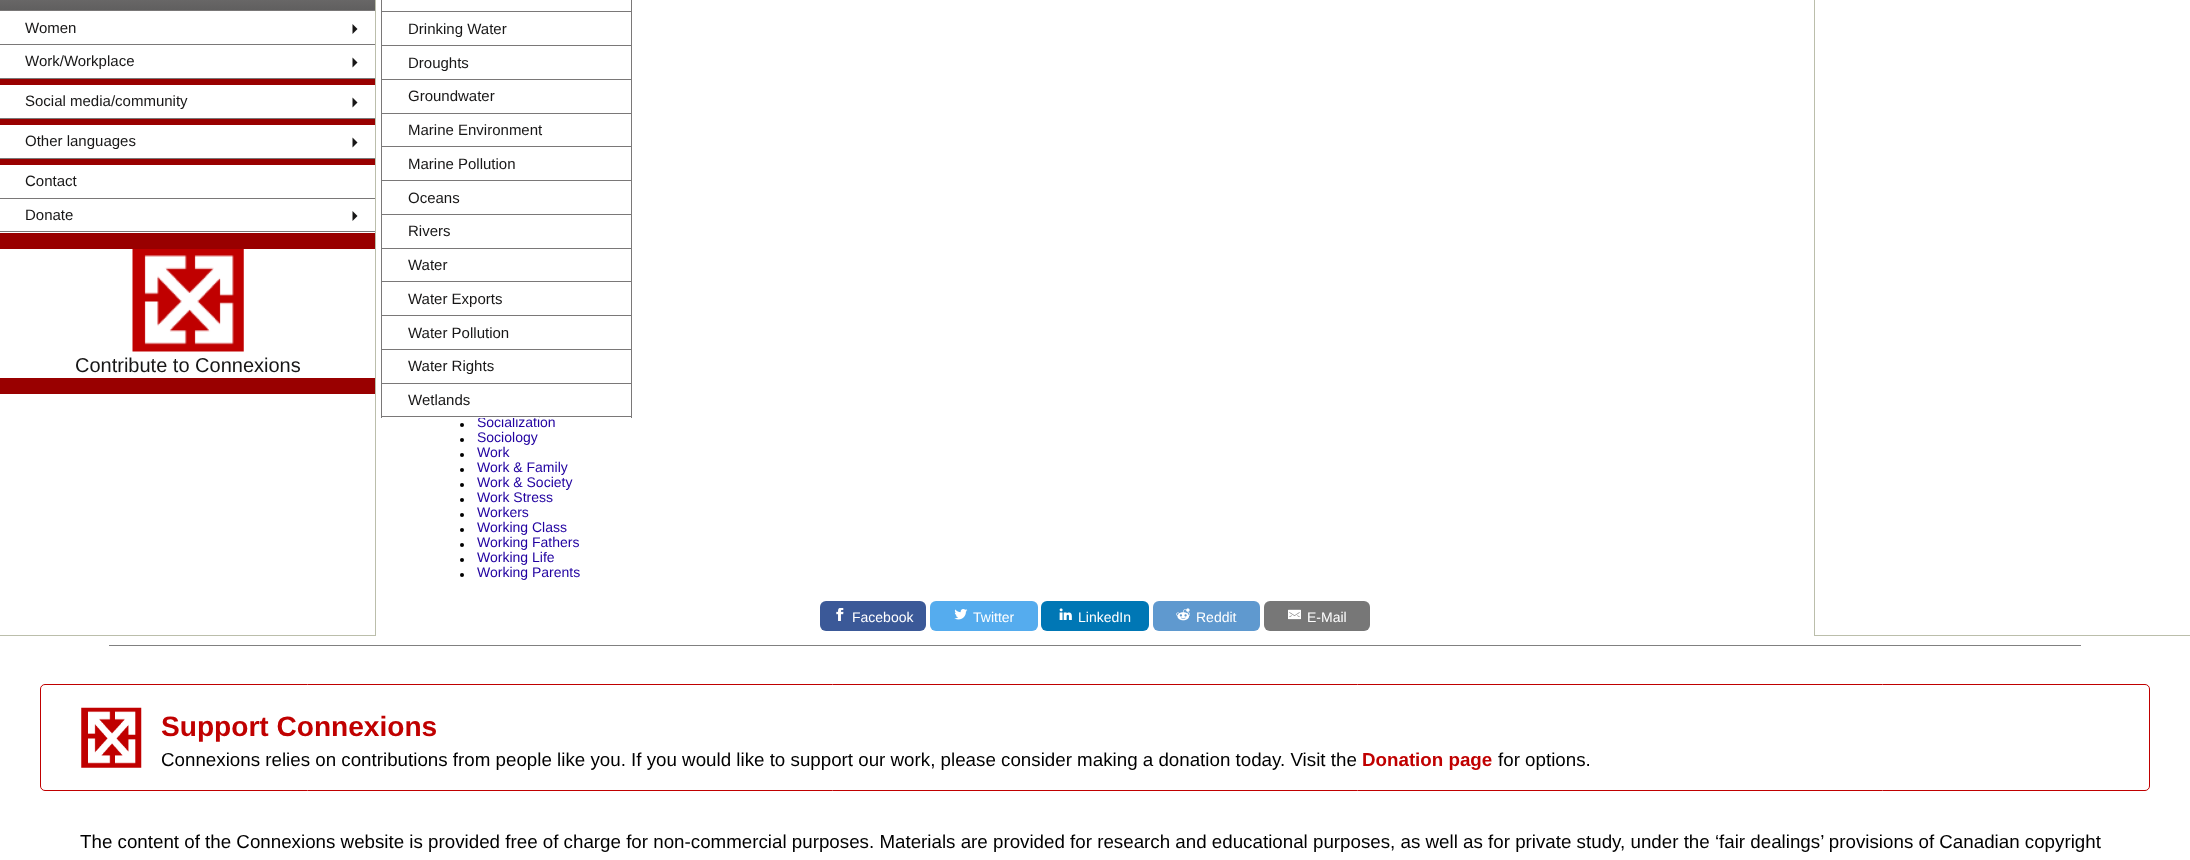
<!DOCTYPE html>
<meta charset="utf-8">
<style>body { margin: 0 } canvas { display: block }</style>
<canvas id="canvas" width="2190" height="860"></canvas>
<img id="img1" src="img_01.png" hidden>
<img id="img2" src="img_02.png" hidden>
<img id="img3" src="img_03.png" hidden>
<img id="img4" src="img_04.png" hidden>
<img id="img5" src="img_05.png" hidden>
<img id="img6" src="img_06.png" hidden>
<img id="img7" src="img_07.png" hidden>
<script>
window.onload = function () {
	const canvas = document.getElementById("canvas");
	const ctx = canvas.getContext("2d");
	ctx.miterLimit = 4;
	ctx.fontKerning = "normal";
	function txt(s, x, y) {
		ctx.fillText(s, x, y);
	}
	function fill(x, y, w, h) {
		ctx.fillRect(x, y, w, h);
	}
	function round(x, y, w, h, r) {
		ctx.beginPath();
		ctx.roundRect(x, y, w, h, r);
		ctx.fill();
	}
	function img(id, x, y, w, h) {
		ctx.drawImage(document.getElementById(id), x, y, w, h);
	}
	let gradient;

	ctx.fillStyle = "#FFFFFF";
	fill(0, 0, 2190, 860);
	ctx.fillStyle = "#BBBEAB";
	fill(375, 0, 1, 636);
	fill(0, 635, 376, 1);
	ctx.fillStyle = "#7A7878";
	fill(0, 44, 375, 1);
	ctx.fillStyle = "#171616";
	ctx.beginPath();
	ctx.moveTo(352.5, 34);
	ctx.lineTo(352.5, 24);
	ctx.lineTo(357.5, 29);
	ctx.closePath();
	ctx.fill();
	gradient = ctx.createLinearGradient(188, -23, 188, 10);
	gradient.addColorStop(0, "#7A7878");
	gradient.addColorStop(1, "#605F5F");
	ctx.fillStyle = gradient;
	fill(0, 0, 375, 10);
	gradient = ctx.createLinearGradient(188, 10, 188, 43);
	gradient.addColorStop(0, "#7A7878");
	gradient.addColorStop(1, "#605F5F");
	ctx.fillStyle = gradient;
	fill(0, 10, 375, 1);
	ctx.fillStyle = "#7A7878";
	fill(631, 0, 1, 418);
	fill(381, 11, 250, 1);
	fill(381, 0, 1, 13);
	fill(381, 45, 250, 1);
	fill(381, 13, 1, 33);
	fill(381, 79, 250, 1);
	fill(381, 46, 1, 34);
	fill(381, 113, 250, 1);
	fill(381, 80, 1, 34);
	fill(381, 146, 250, 1);
	fill(381, 114, 1, 34);
	fill(381, 180, 250, 1);
	fill(381, 148, 1, 33);
	fill(381, 214, 250, 1);
	fill(381, 181, 1, 34);
	fill(381, 248, 250, 1);
	fill(381, 215, 1, 34);
	fill(381, 281, 250, 1);
	fill(381, 249, 1, 34);
	fill(381, 315, 250, 1);
	fill(381, 283, 1, 33);
	fill(381, 349, 250, 1);
	fill(381, 316, 1, 34);
	fill(381, 383, 250, 1);
	fill(381, 350, 1, 34);
	fill(0, 78, 375, 1);
	ctx.fillStyle = "#171616";
	ctx.beginPath();
	ctx.moveTo(352.5, 67.5);
	ctx.lineTo(352.5, 57.5);
	ctx.lineTo(357.5, 62.5);
	ctx.closePath();
	ctx.fill();
	ctx.fillStyle = "#990000";
	fill(0, 79, 375, 6);
	ctx.fillStyle = "#7A7878";
	fill(0, 118, 375, 1);
	ctx.fillStyle = "#171616";
	ctx.beginPath();
	ctx.moveTo(352.5, 107.5);
	ctx.lineTo(352.5, 97.5);
	ctx.lineTo(357.5, 102.5);
	ctx.closePath();
	ctx.fill();
	ctx.fillStyle = "#990000";
	fill(0, 119, 375, 6);
	ctx.fillStyle = "#7A7878";
	fill(0, 158, 375, 1);
	ctx.fillStyle = "#171616";
	ctx.beginPath();
	ctx.moveTo(352.5, 147.5);
	ctx.lineTo(352.5, 137.5);
	ctx.lineTo(357.5, 142.5);
	ctx.closePath();
	ctx.fill();
	ctx.fillStyle = "#990000";
	fill(0, 159, 375, 6);
	ctx.fillStyle = "#7A7878";
	fill(0, 198, 375, 1);
	fill(0, 231, 375, 1);
	ctx.fillStyle = "#171616";
	ctx.beginPath();
	ctx.moveTo(352.5, 221);
	ctx.lineTo(352.5, 211);
	ctx.lineTo(357.5, 216);
	ctx.closePath();
	ctx.fill();
	ctx.fillStyle = "#990000";
	fill(0, 233, 375, 16);
	img("img1", 132, 249, 112, 103);
	fill(0, 378, 375, 16);
	ctx.fillStyle = "#BBBEAB";
	fill(1814, 635, 376, 1);
	fill(1814, 0, 1, 636);
	ctx.fillStyle = "#000000";
	ctx.beginPath();
	ctx.arc(462, 425, 2, 0, Math.PI * 2);
	ctx.fill();
	ctx.beginPath();
	ctx.arc(462, 440, 2, 0, Math.PI * 2);
	ctx.fill();
	ctx.beginPath();
	ctx.arc(462, 455, 2, 0, Math.PI * 2);
	ctx.fill();
	ctx.beginPath();
	ctx.arc(462, 470, 2, 0, Math.PI * 2);
	ctx.fill();
	ctx.beginPath();
	ctx.arc(462, 485, 2, 0, Math.PI * 2);
	ctx.fill();
	ctx.beginPath();
	ctx.arc(462, 500, 2, 0, Math.PI * 2);
	ctx.fill();
	ctx.beginPath();
	ctx.arc(462, 515, 2, 0, Math.PI * 2);
	ctx.fill();
	ctx.beginPath();
	ctx.arc(462, 530, 2, 0, Math.PI * 2);
	ctx.fill();
	ctx.beginPath();
	ctx.arc(462, 545, 2, 0, Math.PI * 2);
	ctx.fill();
	ctx.beginPath();
	ctx.arc(462, 560, 2, 0, Math.PI * 2);
	ctx.fill();
	ctx.beginPath();
	ctx.arc(462, 575, 2, 0, Math.PI * 2);
	ctx.fill();
	ctx.fillStyle = "#3B5998";
	round(820, 601, 106, 30, 6);
	img("img2", 836, 608, 8, 13);
	ctx.fillStyle = "#55ACEE";
	round(930, 601, 108, 30, 6);
	img("img3", 954, 609, 14, 11);
	ctx.fillStyle = "#0077B5";
	round(1041, 601, 108, 30, 6);
	img("img4", 1059, 608, 13, 12);
	ctx.fillStyle = "#5F99CF";
	round(1153, 601, 107, 30, 6);
	img("img5", 1176, 608, 14, 13);
	ctx.fillStyle = "#777777";
	round(1264, 601, 106, 30, 6);
	img("img6", 1288, 609, 13, 11);
	ctx.fillStyle = "#808080";
	fill(109, 645, 1972, 1);
	ctx.beginPath();
	ctx.roundRect(40.5, 684.5, 2109, 106, 4.5);
	ctx.strokeStyle = "#C00000";
	ctx.stroke();
	img("img7", 81, 707, 61, 61);
	ctx.font = "15px Liberation Sans";
	ctx.fillStyle = "#171616";
	txt("Women", 25, 33);
	txt("Drinking Water", 408, 34);
	txt("Droughts", 408, 68);
	txt("Groundwater", 408, 101);
	txt("Marine Environment", 408, 135);
	txt("Marine Pollution", 408, 169);
	txt("Oceans", 408, 203);
	txt("Rivers", 408, 236);
	txt("Water", 408, 270);
	txt("Water Exports", 408, 304);
	txt("Water Pollution", 408, 338);
	txt("Water Rights", 408, 371);
	txt("Wetlands", 408, 405);
	txt("Work/Workplace", 25, 66);
	txt("Social media/community", 25, 106);
	txt("Other languages", 25, 146);
	txt("Contact", 25, 186);
	txt("Donate", 25, 220);
	ctx.font = "20px Liberation Sans";
	txt("Contribute to Connexions", 75, 372);
	ctx.font = "14px Liberation Sans";
	ctx.fillStyle = "#2000A0";
	txt("Socialization", 477, 427);
	ctx.fillStyle = "#FFFFFF";
	fill(478, 416, 61, 2);
	ctx.fillStyle = "#7A7878";
	fill(381, 416, 250, 1);
	fill(381, 384, 1, 34);
	ctx.fillStyle = "#2000A0";
	txt("Sociology", 477, 442);
	txt("Work", 477, 457);
	txt("Work & Family", 477, 472);
	txt("Work & Society", 477, 487);
	txt("Work Stress", 477, 502);
	txt("Workers", 477, 517);
	txt("Working Class", 477, 532);
	txt("Working Fathers", 477, 547);
	txt("Working Life", 477, 562);
	txt("Working Parents", 477, 577);
	ctx.fillStyle = "#FFFFFF";
	txt("Facebook", 852, 622);
	txt("Twitter", 973, 622);
	txt("LinkedIn", 1078, 622);
	txt("Reddit", 1196, 622);
	txt("E-Mail", 1307, 622);
	ctx.font = "bold 28.1px Liberation Sans";
	ctx.fillStyle = "#C00000";
	txt("Support Connexions", 161, 736);
	ctx.font = "18.75px Liberation Sans";
	ctx.fillStyle = "#000000";
	txt("Connexions relies on contributions from people like you. If you would like to support our work, please consider making a donation today. Visit the", 161, 766);
	ctx.font = "bold 18.75px Liberation Sans";
	ctx.fillStyle = "#C00000";
	txt("Donation page", 1362, 766);
	ctx.font = "18.75px Liberation Sans";
	ctx.fillStyle = "#000000";
	txt("for options.", 1498, 766);
	txt("The content of the Connexions website is provided free of charge for non-commercial purposes. Materials are provided for research and educational purposes, as well as for private study, under the ‘fair dealings’ provisions of Canadian copyright", 80, 848);
};
</script>
